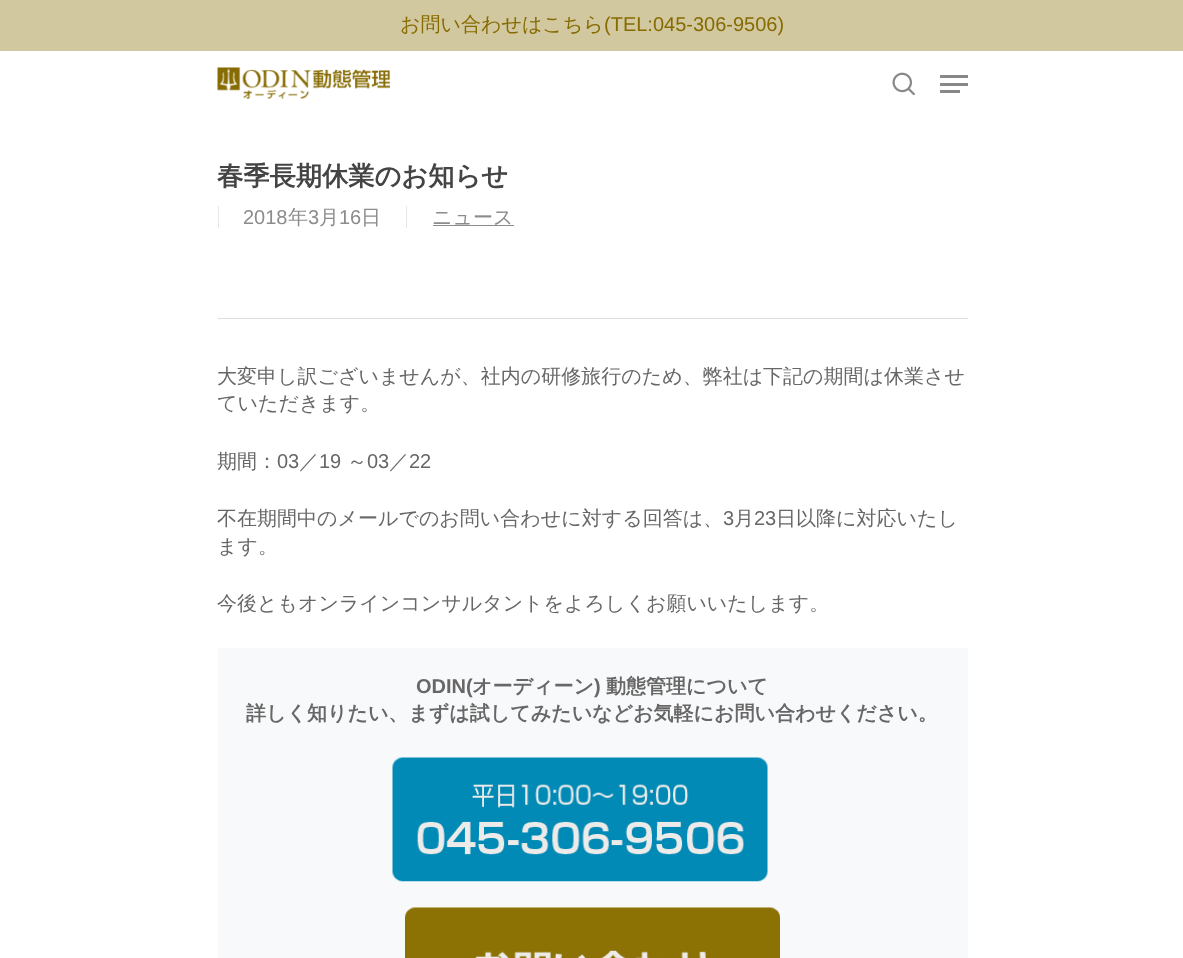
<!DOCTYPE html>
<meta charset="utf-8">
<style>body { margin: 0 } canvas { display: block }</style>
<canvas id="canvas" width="1183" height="958"></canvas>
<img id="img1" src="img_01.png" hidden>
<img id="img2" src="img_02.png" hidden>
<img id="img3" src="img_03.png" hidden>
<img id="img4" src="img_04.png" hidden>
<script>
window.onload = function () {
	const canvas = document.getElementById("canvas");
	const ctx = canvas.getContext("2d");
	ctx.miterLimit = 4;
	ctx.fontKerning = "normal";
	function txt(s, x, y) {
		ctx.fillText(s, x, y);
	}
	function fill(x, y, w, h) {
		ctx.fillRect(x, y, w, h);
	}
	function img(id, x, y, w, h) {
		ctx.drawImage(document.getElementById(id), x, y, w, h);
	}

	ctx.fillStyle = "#FFFFFF";
	fill(0, 0, 1183, 958);
	ctx.fillStyle = "#D2C8A0";
	fill(0, 0, 1183, 51);
	img("img1", 217, 67, 173, 32);
	img("img2", 892, 72, 23, 24);
	ctx.fillStyle = "#888888";
	fill(940, 75, 28, 3);
	fill(940, 90, 20, 3);
	fill(940, 83, 28, 3);
	ctx.fillStyle = "#DDDDDD";
	fill(218, 318, 750, 1);
	ctx.fillStyle = "#E6E6E6";
	fill(218, 206, 1, 22);
	fill(406, 206, 1, 22);
	ctx.fillStyle = "#8C8C8C";
	fill(433, 225, 81, 1);
	ctx.fillStyle = "#F8F9FA";
	fill(218, 648, 750, 310);
	img("img3", 392, 757, 376, 125);
	img("img4", 405, 907, 375, 51);
	ctx.font = "500 20px WenQuanYi Zen Hei";
	ctx.fillStyle = "#866B01";
	txt("お問い合わせはこちら", 400, 31);
	ctx.font = "20px Liberation Sans";
	txt("(TEL:045-306-9506)", 604, 31);
	ctx.font = "bold 26.25px WenQuanYi Zen Hei";
	ctx.fillStyle = "#444444";
	txt("春季長期休業のお知らせ", 217, 185);
	ctx.font = "20px Liberation Sans";
	ctx.fillStyle = "#8C8C8C";
	txt("2018", 243, 224);
	ctx.font = "500 20px WenQuanYi Zen Hei";
	txt("年", 288, 224);
	ctx.font = "20px Liberation Sans";
	txt("3", 308, 224);
	ctx.font = "500 20px WenQuanYi Zen Hei";
	txt("月", 319, 224);
	ctx.font = "20px Liberation Sans";
	txt("16", 339, 224);
	ctx.font = "500 20px WenQuanYi Zen Hei";
	txt("日", 361, 224);
	txt("ニュース", 432, 224);
	ctx.fillStyle = "#676767";
	txt("大変申し訳ございませんが、社内の研修旅行のため、弊社は下記の期間は休業させ", 217, 383);
	txt("ていただきます。", 217, 410);
	txt("期間：", 217, 468);
	ctx.font = "20px Liberation Sans";
	txt("03", 277, 468);
	ctx.font = "500 20px WenQuanYi Zen Hei";
	txt("／", 299, 468);
	ctx.font = "20px Liberation Sans";
	txt("19", 319, 468);
	ctx.font = "500 20px WenQuanYi Zen Hei";
	txt("～", 347, 468);
	ctx.font = "20px Liberation Sans";
	txt("03", 367, 468);
	ctx.font = "500 20px WenQuanYi Zen Hei";
	txt("／", 389, 468);
	ctx.font = "20px Liberation Sans";
	txt("22", 409, 468);
	ctx.font = "500 20px WenQuanYi Zen Hei";
	txt("不在期間中のメールでのお問い合わせに対する回答は、", 217, 525);
	ctx.font = "20px Liberation Sans";
	txt("3", 723, 525);
	ctx.font = "500 20px WenQuanYi Zen Hei";
	txt("月", 734, 525);
	ctx.font = "20px Liberation Sans";
	txt("23", 754, 525);
	ctx.font = "500 20px WenQuanYi Zen Hei";
	txt("日以降に対応いたし", 776, 525);
	txt("ます。", 217, 553);
	txt("今後ともオンラインコンサルタントをよろしくお願いいたします。", 217, 610);
	ctx.font = "bold 20px Liberation Sans";
	txt("ODIN(", 416, 693);
	ctx.font = "bold 20px WenQuanYi Zen Hei";
	txt("オーディーン", 472, 693);
	ctx.font = "bold 20px Liberation Sans";
	txt(")", 594, 693);
	ctx.font = "bold 20px WenQuanYi Zen Hei";
	txt("動態管理について", 606, 693);
	txt("詳しく知りたい、まずは試してみたいなどお気軽にお問い合わせください。", 246, 720);
};
</script>
